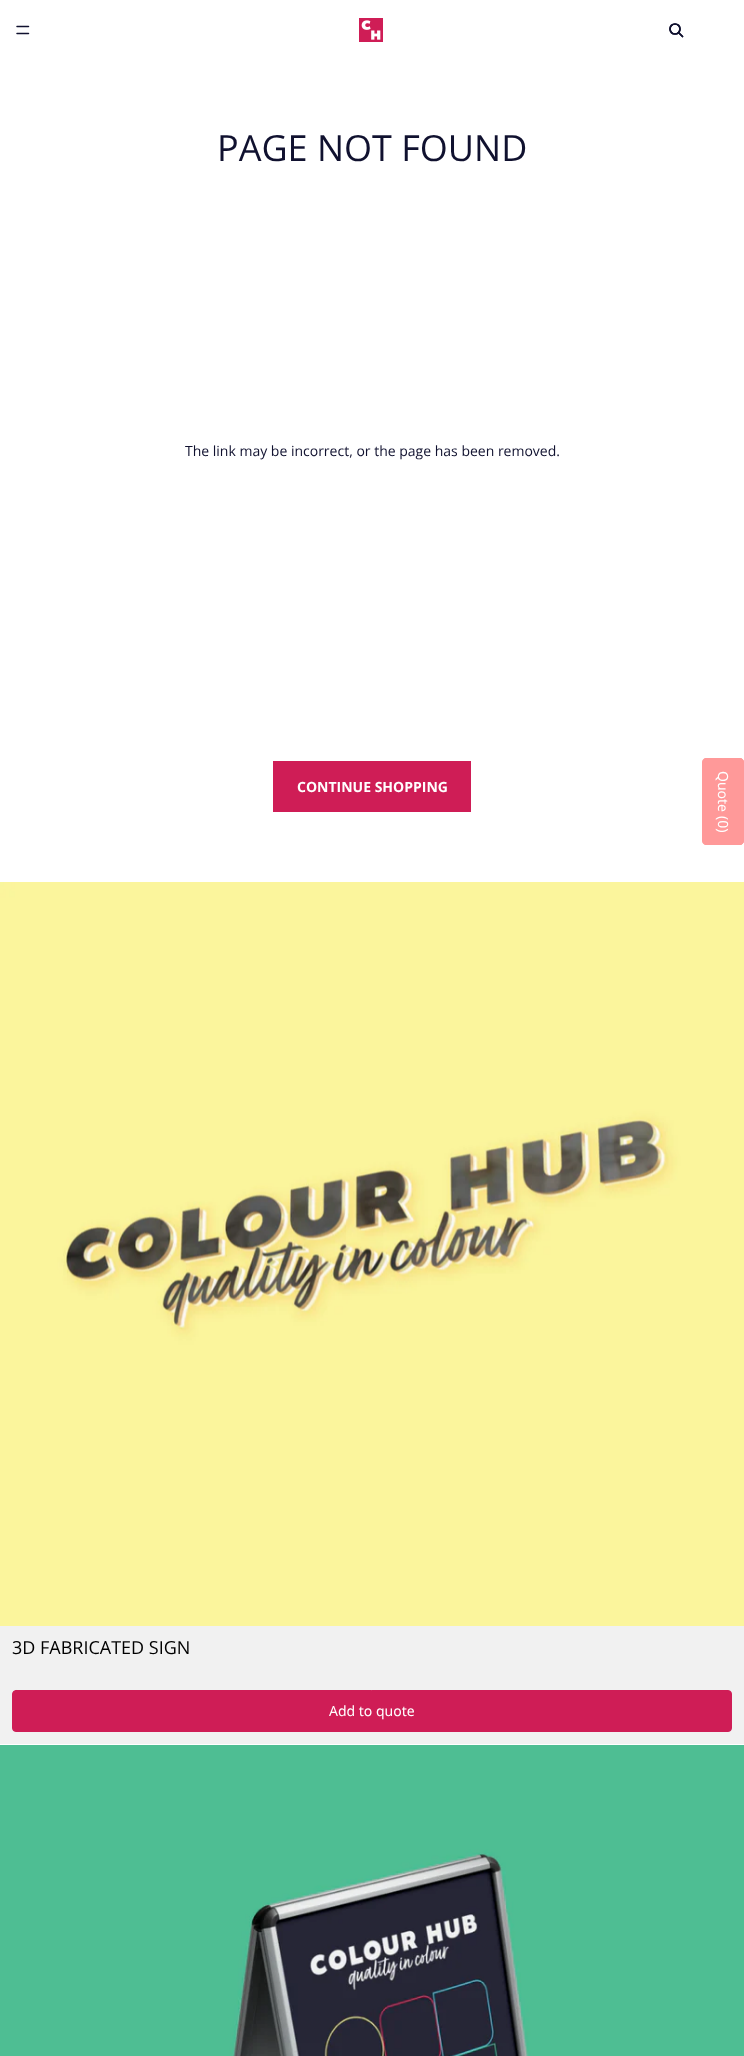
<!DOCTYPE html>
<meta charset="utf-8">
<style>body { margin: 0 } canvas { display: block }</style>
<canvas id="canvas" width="744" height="2056"></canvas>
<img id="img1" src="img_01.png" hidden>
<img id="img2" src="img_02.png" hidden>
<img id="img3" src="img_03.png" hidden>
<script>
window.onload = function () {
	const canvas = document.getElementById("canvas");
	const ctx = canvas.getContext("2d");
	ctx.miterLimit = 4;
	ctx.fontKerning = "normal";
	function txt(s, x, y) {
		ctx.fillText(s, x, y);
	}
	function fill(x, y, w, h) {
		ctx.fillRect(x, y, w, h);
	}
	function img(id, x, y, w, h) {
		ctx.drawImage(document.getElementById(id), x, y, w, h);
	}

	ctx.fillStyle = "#FFFFFF";
	fill(0, 0, 744, 2056);
	ctx.beginPath();
	ctx.moveTo(17, 26.5);
	ctx.lineTo(28.5, 26.5);
	ctx.moveTo(17, 33.5);
	ctx.lineTo(28.5, 33.5);
	ctx.strokeStyle = "#10112F";
	ctx.lineWidth = 1.5;
	ctx.lineCap = "round";
	ctx.stroke();
	img("img1", 359, 18, 24, 24);
	ctx.beginPath();
	ctx.arc(675, 29, 5, 0, Math.PI * 2);
	ctx.lineWidth = 1.7;
	ctx.stroke();
	ctx.beginPath();
	ctx.moveTo(679, 33);
	ctx.lineTo(682.5, 36.5);
	ctx.lineJoin = "round";
	ctx.stroke();
	ctx.beginPath();
	ctx.arc(675, 29, 5, 0, Math.PI * 2);
	ctx.stroke();
	ctx.beginPath();
	ctx.moveTo(679, 33);
	ctx.lineTo(682.5, 36.5);
	ctx.stroke();
	ctx.fillStyle = "#CF1D56";
	fill(273, 761, 198, 51);
	ctx.fillStyle = "#F1F1F1";
	fill(0, 1626, 744, 118);
	img("img2", 0, 882, 744, 744);
	ctx.fillStyle = "#CF1D56";
	ctx.beginPath();
	ctx.roundRect(12.5, 1690.5, 719, 41, 3.5);
	ctx.fill();
	ctx.strokeStyle = "#CF1D56";
	ctx.lineWidth = 1;
	ctx.lineJoin = "miter";
	ctx.stroke();
	img("img3", 0, 1745, 744, 311);
	ctx.fillStyle = "#FF9999";
	ctx.beginPath();
	ctx.moveTo(744, 762);
	ctx.lineTo(744, 841);
	ctx.bezierCurveTo(744, 843, 742, 845, 740, 845);
	ctx.lineTo(706, 845);
	ctx.bezierCurveTo(704, 845, 702, 843, 702, 841);
	ctx.lineTo(702, 762);
	ctx.bezierCurveTo(702, 760, 704, 758, 706, 758);
	ctx.lineTo(740, 758);
	ctx.bezierCurveTo(742, 758, 744, 760, 744, 762);
	ctx.closePath();
	ctx.fill();
	ctx.beginPath();
	ctx.moveTo(743.5, 762);
	ctx.lineTo(743.5, 841);
	ctx.bezierCurveTo(743.5, 843, 742, 844.5, 740, 844.5);
	ctx.lineTo(706.5, 844.5);
	ctx.bezierCurveTo(704.5, 844.5, 703, 843, 703, 841);
	ctx.lineTo(703, 762);
	ctx.bezierCurveTo(703, 760, 704.5, 758.5, 706.5, 758.5);
	ctx.lineTo(740, 758.5);
	ctx.bezierCurveTo(742, 758.5, 743.5, 760, 743.5, 762);
	ctx.closePath();
	ctx.strokeStyle = "#FF9999";
	ctx.lineCap = "butt";
	ctx.stroke();
	ctx.font = "36px Open Sans";
	ctx.fillStyle = "#10112F";
	txt("PAGE NOT FOUND", 217, 161);
	ctx.font = "14px Open Sans";
	txt("The link may be incorrect, or the page has been removed.", 185, 456);
	ctx.font = "bold 14px Open Sans";
	ctx.fillStyle = "#FFFFFF";
	txt("CONTINUE SHOPPING", 297, 792);
	ctx.font = "18px Open Sans";
	ctx.fillStyle = "#000000";
	txt("3D FABRICATED SIGN", 12, 1654);
	ctx.font = "14px Noto Sans";
	ctx.fillStyle = "#FFFFFF";
	txt("Add to quote", 329, 1716);
	ctx.save();
	ctx.translate(718, 771);
	ctx.rotate(90 * Math.PI / 180);
	ctx.fillText("Quote", 0, 0);
	ctx.restore();
	ctx.save();
	ctx.translate(718, 816);
	ctx.rotate(90 * Math.PI / 180);
	ctx.fillText("(0)", 0, 0);
	ctx.restore();
};
</script>
